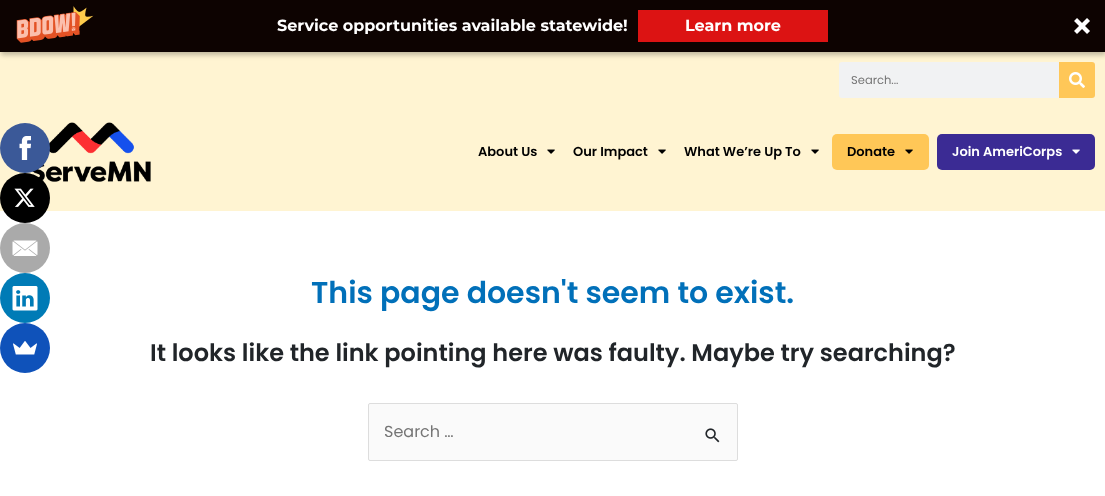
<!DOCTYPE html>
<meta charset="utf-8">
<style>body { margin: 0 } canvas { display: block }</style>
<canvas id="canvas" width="1105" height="496"></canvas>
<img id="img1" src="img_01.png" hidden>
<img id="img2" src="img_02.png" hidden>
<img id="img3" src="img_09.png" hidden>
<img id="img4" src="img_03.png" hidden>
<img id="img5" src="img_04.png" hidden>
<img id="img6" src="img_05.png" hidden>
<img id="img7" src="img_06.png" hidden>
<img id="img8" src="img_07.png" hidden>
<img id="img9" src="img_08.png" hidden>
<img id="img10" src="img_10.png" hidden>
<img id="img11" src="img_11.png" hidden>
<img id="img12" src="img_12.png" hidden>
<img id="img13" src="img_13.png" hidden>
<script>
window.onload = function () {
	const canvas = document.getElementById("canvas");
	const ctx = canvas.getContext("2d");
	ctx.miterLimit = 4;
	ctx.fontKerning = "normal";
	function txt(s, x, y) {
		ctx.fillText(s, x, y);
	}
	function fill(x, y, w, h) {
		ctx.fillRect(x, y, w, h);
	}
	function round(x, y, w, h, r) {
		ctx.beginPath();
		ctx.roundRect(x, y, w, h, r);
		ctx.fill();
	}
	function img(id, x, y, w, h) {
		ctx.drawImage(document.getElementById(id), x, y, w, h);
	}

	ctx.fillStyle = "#FFFFFF";
	fill(0, 0, 1105, 496);
	ctx.fillStyle = "#FFF4D2";
	fill(0, 52, 1105, 159);
	ctx.fillStyle = "#F1F2F3";
	round(839, 62, 256, 36, 3);
	ctx.fillStyle = "#FFC758";
	ctx.beginPath();
	ctx.roundRect(1059, 62, 36, 36, [0, 3, 3, 0]);
	ctx.fill();
	ctx.fillStyle = "rgba(0, 0, 0, 0.25)";
	ctx.filter = "blur(2.5px)";
	ctx.beginPath();
	ctx.rect(1, 3, 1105, 52);
	ctx.fill();
	ctx.filter = "none";
	ctx.fillStyle = "#0D0301";
	fill(0, 0, 1105, 52);
	img("img1", 16, 6, 78, 37);
	ctx.fillStyle = "#DC1313";
	fill(638, 10, 190, 32);
	img("img2", 1074, 18, 16, 16);
	img("img3", 32, 122, 119, 60);
	ctx.fillStyle = "#3B5998";
	ctx.beginPath();
	ctx.arc(25, 148, 25, 0, Math.PI * 2);
	ctx.fill();
	img("img4", 19, 136, 12, 24);
	ctx.fillStyle = "#000000";
	ctx.beginPath();
	ctx.arc(25, 198, 25, 0, Math.PI * 2);
	ctx.fill();
	img("img5", 14, 188, 21, 19);
	ctx.fillStyle = "#AAAAAA";
	ctx.beginPath();
	ctx.arc(25, 248, 25, 0, Math.PI * 2);
	ctx.fill();
	img("img6", 12, 240, 26, 16);
	ctx.fillStyle = "#007BB6";
	ctx.beginPath();
	ctx.arc(25, 298, 25, 0, Math.PI * 2);
	ctx.fill();
	img("img7", 12, 286, 26, 25);
	ctx.fillStyle = "#0F52BA";
	ctx.beginPath();
	ctx.arc(25, 348, 25, 0, Math.PI * 2);
	ctx.fill();
	img("img8", 13, 341, 24, 14);
	img("img9", 1069, 72, 16, 16);
	img("img10", 547, 149, 8, 5);
	img("img10", 658, 149, 8, 5);
	img("img10", 811, 149, 8, 5);
	ctx.fillStyle = "#FFC757";
	round(832, 134, 97, 36, 5);
	img("img11", 905, 149, 8, 5);
	ctx.fillStyle = "#3B2B94";
	round(937, 134, 158, 36, 5);
	img("img12", 1072, 149, 8, 5);
	ctx.fillStyle = "#FAFAFA";
	ctx.beginPath();
	ctx.roundRect(368.5, 403.5, 369, 57, 1.5);
	ctx.fill();
	ctx.strokeStyle = "#DDDDDD";
	ctx.stroke();
	img("img13", 705, 428, 15, 15);
	ctx.font = "bold 16px Montserrat";
	ctx.fillStyle = "#FFFFFF";
	txt("Service opportunities available statewide!", 277, 31);
	txt("Learn more", 685, 31);
	ctx.font = "11.5px Poppins";
	ctx.fillStyle = "#757575";
	txt("Search...", 851, 84);
	ctx.font = "600 13px Poppins";
	ctx.fillStyle = "#000000";
	txt("About Us", 478, 156);
	txt("Our Impact", 573, 156);
	txt("What We’re Up To", 684, 156);
	txt("Donate", 847, 156);
	ctx.fillStyle = "#FFFFFF";
	txt("Join AmeriCorps", 952, 156);
	ctx.font = "600 30px Poppins";
	ctx.fillStyle = "#0170B9";
	txt("This page doesn't seem to exist.", 311, 303);
	ctx.font = "600 24px Poppins";
	ctx.fillStyle = "#212529";
	txt("It looks like the link pointing here was faulty. Maybe try searching?", 150, 361);
	ctx.font = "16px Poppins";
	ctx.fillStyle = "#757575";
	txt("Search …", 384, 437);
};
</script>
